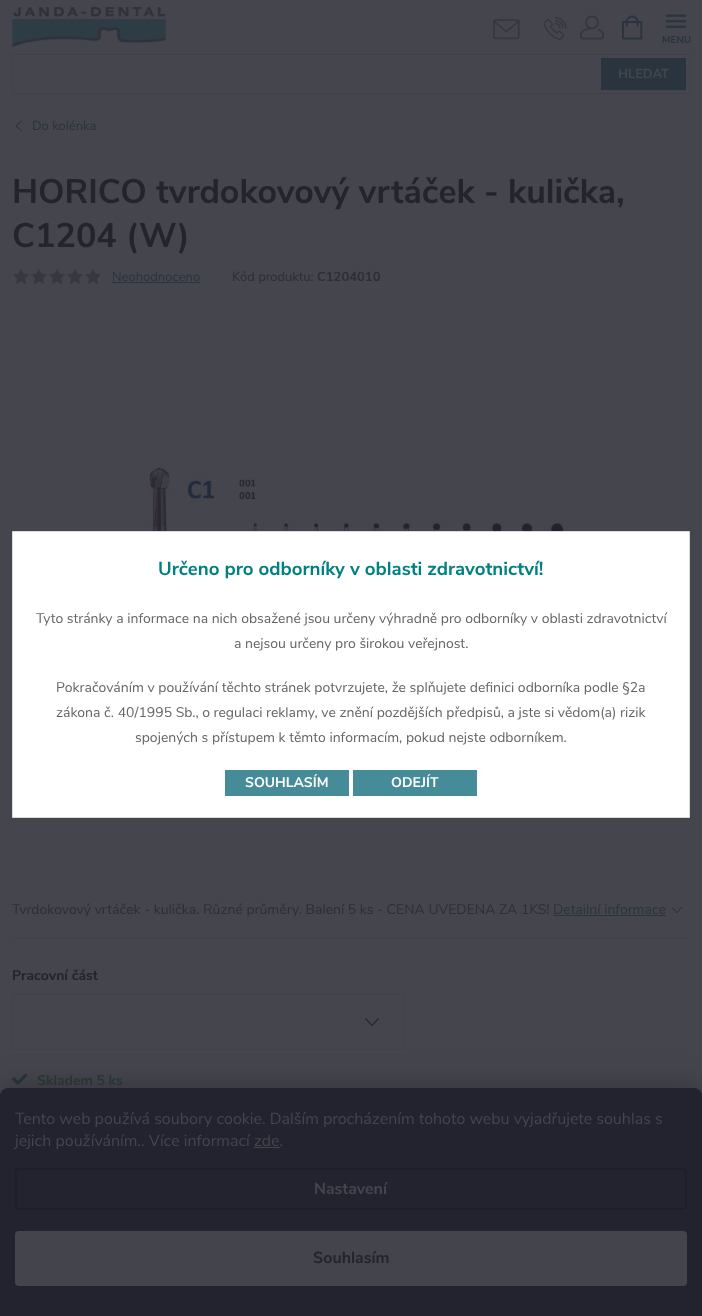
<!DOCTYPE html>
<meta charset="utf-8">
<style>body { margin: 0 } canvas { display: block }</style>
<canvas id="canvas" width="702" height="1316"></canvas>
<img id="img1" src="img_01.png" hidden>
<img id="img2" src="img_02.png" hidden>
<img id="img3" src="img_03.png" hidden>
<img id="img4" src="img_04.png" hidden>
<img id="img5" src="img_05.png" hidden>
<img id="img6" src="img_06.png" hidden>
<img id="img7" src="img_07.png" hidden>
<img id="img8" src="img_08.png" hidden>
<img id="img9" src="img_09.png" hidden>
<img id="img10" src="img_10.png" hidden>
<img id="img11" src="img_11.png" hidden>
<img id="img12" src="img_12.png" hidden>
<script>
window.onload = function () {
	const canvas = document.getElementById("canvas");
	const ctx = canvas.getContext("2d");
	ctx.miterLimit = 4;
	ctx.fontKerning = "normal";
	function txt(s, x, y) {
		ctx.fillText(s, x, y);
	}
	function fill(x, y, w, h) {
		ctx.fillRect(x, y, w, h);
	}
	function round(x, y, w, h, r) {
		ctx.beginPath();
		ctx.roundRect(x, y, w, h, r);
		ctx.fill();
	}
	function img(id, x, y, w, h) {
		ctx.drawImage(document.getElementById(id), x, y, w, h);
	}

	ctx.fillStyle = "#45454D";
	fill(0, 0, 702, 1316);
	img("img1", 493, 19, 27, 21);
	img("img2", 543, 17, 24, 23);
	img("img3", 580, 15, 24, 25);
	img("img4", 666, 14, 20, 14);
	img("img5", 12, 7, 154, 40);
	img("img6", 622, 15, 21, 25);
	ctx.strokeStyle = "#414149";
	ctx.strokeRect(12.5, 54.5, 677, 39);
	ctx.fillStyle = "#29343E";
	fill(601, 58, 85, 32);
	img("img7", 15, 120, 7, 12);
	img("img8", 13, 269, 16, 15);
	img("img8", 31, 269, 16, 15);
	img("img8", 49, 269, 16, 15);
	img("img8", 67, 269, 16, 15);
	img("img8", 85, 269, 16, 15);
	fill(112, 282, 88, 1);
	img("img9", 123, 466, 456, 65);
	ctx.fillStyle = "#414149";
	fill(12, 938, 678, 1);
	ctx.fillStyle = "#29343E";
	fill(553, 915, 113, 1);
	img("img10", 671, 907, 12, 7);
	img("img11", 365, 1018, 14, 8);
	ctx.strokeRect(12.5, 994.5, 391, 55);
	img("img12", 12, 1073, 16, 12);
	ctx.fillStyle = "#FFFFFF";
	ctx.beginPath();
	ctx.rect(12.5, 531.5, 677, 286);
	ctx.fill();
	ctx.strokeStyle = "#DADADA";
	ctx.stroke();
	ctx.fillStyle = "#468C98";
	fill(225, 770, 124, 26);
	fill(353, 770, 124, 26);
	ctx.fillStyle = "rgba(35, 34, 48, 0.5)";
	ctx.filter = "blur(15px)";
	ctx.beginPath();
	ctx.roundRect(0, 1088, 702, 228, 8);
	ctx.fill();
	ctx.filter = "none";
	ctx.fillStyle = "#23222F";
	ctx.beginPath();
	ctx.roundRect(0, 1088, 702, 228, [8, 8, 0, 0]);
	ctx.fill();
	ctx.beginPath();
	ctx.roundRect(16, 1169, 670, 40, 3);
	ctx.strokeStyle = "#1F1F27";
	ctx.lineWidth = 2;
	ctx.stroke();
	ctx.fillStyle = "#44444D";
	round(15, 1231, 672, 55, 4);
	ctx.font = "bold 10px Nunito Sans";
	ctx.fillStyle = "#29343E";
	txt("MENU", 662, 43);
	ctx.font = "bold 13px Nunito Sans";
	ctx.fillStyle = "#45454D";
	txt("HLEDAT", 618, 78);
	ctx.font = "13px Nunito Sans";
	ctx.fillStyle = "#29343E";
	txt("Do kolénka", 32, 130);
	ctx.font = "bold 34px Nunito Sans";
	ctx.fillStyle = "#24242E";
	txt("HORICO tvrdokovový vrtáček - kulička,", 12, 203);
	txt("C1204 (W)", 12, 247);
	ctx.font = "13px Nunito Sans";
	ctx.fillStyle = "#29343E";
	txt("Neohodnoceno", 112, 281);
	ctx.fillStyle = "#2E2E38";
	txt("Kód produktu:", 232, 281);
	ctx.font = "bold 13px Nunito Sans";
	txt("C1204010", 317, 281);
	ctx.font = "14px Nunito Sans";
	txt("Tvrdokovový vrtáček - kulička. Různé průměry. Balení 5 ks - CENA UVEDENA ZA 1KS!", 12, 914);
	ctx.fillStyle = "#29343E";
	txt("Detailní informace", 553, 914);
	ctx.font = "bold 14px Nunito Sans";
	ctx.fillStyle = "#24242E";
	txt("Pracovní část", 12, 980);
	ctx.fillStyle = "#263630";
	txt("Skladem 5 ks", 37, 1085);
	ctx.font = "bold 18.7px Nunito Sans";
	ctx.fillStyle = "#008080";
	txt("Určeno pro odborníky v oblasti zdravotnictví!", 158, 575);
	ctx.font = "14px Nunito Sans";
	ctx.fillStyle = "#656565";
	txt("Tyto stránky a informace na nich obsažené jsou určeny výhradně pro odborníky v oblasti zdravotnictví", 36, 623);
	txt("a nejsou určeny pro širokou veřejnost.", 234, 648);
	txt("Pokračováním v používání těchto stránek potvrzujete, že splňujete definici odborníka podle §2a", 56, 692);
	txt("zákona č. 40/1995 Sb., o regulaci reklamy, ve znění pozdějších předpisů, a jste si vědom(a) rizik", 56, 717);
	txt("spojených s přístupem k těmto informacím, pokud nejste odborníkem.", 135, 742);
	ctx.font = "bold 14px Nunito Sans";
	ctx.fillStyle = "#FFFFFF";
	txt("SOUHLASÍM", 245, 787);
	txt("ODEJÍT", 391, 787);
	ctx.font = "16px Nunito Sans";
	ctx.fillStyle = "#45454D";
	txt("Tento web používá soubory cookie. Dalším procházením tohoto webu vyjadřujete souhlas s", 15, 1124);
	txt("jejich používáním.. Více informací zde.", 15, 1146);
	ctx.fillStyle = "#44444D";
	fill(254, 1147, 26, 1);
	ctx.font = "bold 16px Nunito Sans";
	ctx.fillStyle = "#45454D";
	txt("Nastavení", 314, 1194);
	ctx.fillStyle = "#24242E";
	txt("Souhlasím", 313, 1263);
};
</script>
